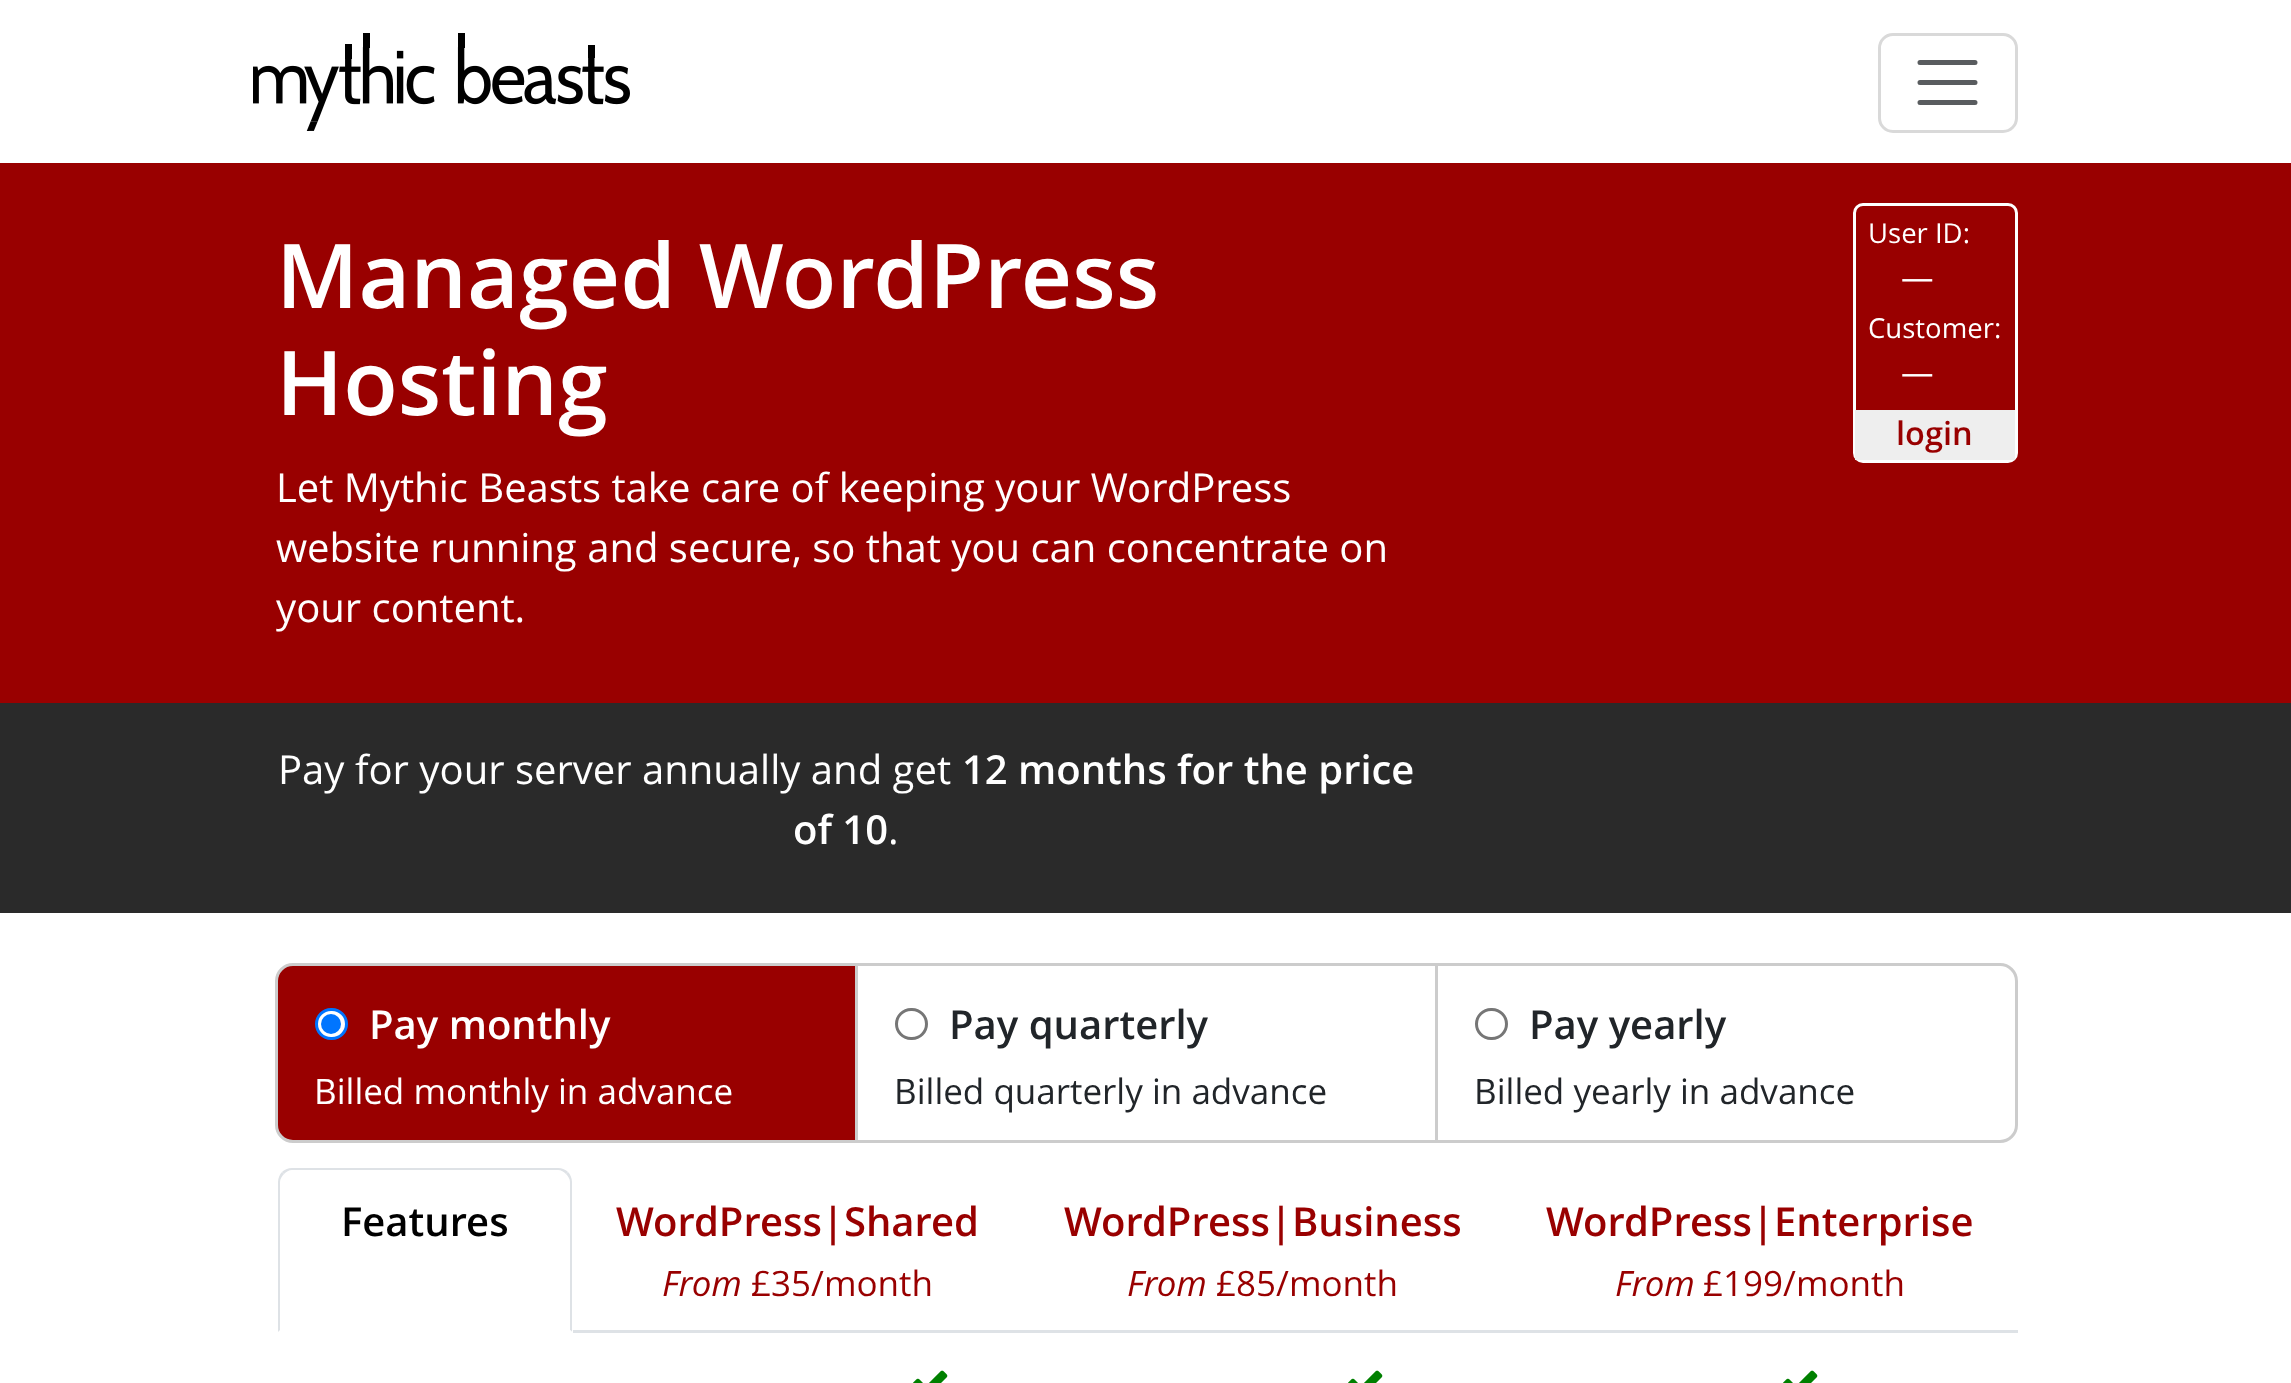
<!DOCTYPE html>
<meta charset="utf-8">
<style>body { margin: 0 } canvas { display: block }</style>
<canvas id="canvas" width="2291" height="1383"></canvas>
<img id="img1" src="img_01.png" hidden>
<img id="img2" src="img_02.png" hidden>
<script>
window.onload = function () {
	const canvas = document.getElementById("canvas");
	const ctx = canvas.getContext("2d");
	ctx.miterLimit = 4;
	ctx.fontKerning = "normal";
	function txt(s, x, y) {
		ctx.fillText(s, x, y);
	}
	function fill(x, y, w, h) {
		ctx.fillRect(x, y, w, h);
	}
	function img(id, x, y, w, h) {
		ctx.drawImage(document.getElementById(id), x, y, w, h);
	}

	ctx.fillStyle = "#FFFFFF";
	fill(0, 0, 2291, 1383);
	img("img1", 253, 33, 377, 98);
	ctx.beginPath();
	ctx.roundRect(1879.5, 34.5, 137, 97, 13.5);
	ctx.strokeStyle = "#D9D9D9";
	ctx.lineWidth = 3;
	ctx.stroke();
	ctx.beginPath();
	ctx.moveTo(1920, 62.5);
	ctx.lineTo(1975, 62.5);
	ctx.moveTo(1920, 82.5);
	ctx.lineTo(1975, 82.5);
	ctx.moveTo(1920, 102.5);
	ctx.lineTo(1975, 102.5);
	ctx.strokeStyle = "#595C5F";
	ctx.lineWidth = 5;
	ctx.lineCap = "round";
	ctx.stroke();
	ctx.fillStyle = "#990000";
	fill(0, 163, 2291, 540);
	ctx.beginPath();
	ctx.roundRect(1854.5, 204.5, 162, 257, 8.5);
	ctx.strokeStyle = "#FFFFFF";
	ctx.lineWidth = 3;
	ctx.stroke();
	ctx.fillStyle = "#EEEEEE";
	fill(1855, 410, 160, 50);
	ctx.fillStyle = "#2A2A2A";
	fill(0, 703, 2291, 210);
	ctx.fillStyle = "#990000";
	ctx.beginPath();
	ctx.roundRect(276.5, 964.5, 580, 177, [16.5, 0, 0, 16.5]);
	ctx.fill();
	ctx.strokeStyle = "#CCCCCC";
	ctx.stroke();
	ctx.fillStyle = "#FFFFFF";
	ctx.beginPath();
	ctx.roundRect(316.5, 1009.5, 30, 29, 14.5);
	ctx.fill();
	ctx.strokeStyle = "#0075FF";
	ctx.stroke();
	ctx.fillStyle = "#0075FF";
	ctx.beginPath();
	ctx.arc(331, 1024, 10, 0, Math.PI * 2);
	ctx.fill();
	ctx.strokeStyle = "#CCCCCC";
	ctx.strokeRect(856.5, 964.5, 580, 177);
	ctx.beginPath();
	ctx.roundRect(896.5, 1009.5, 30, 29, 14.5);
	ctx.strokeStyle = "#767676";
	ctx.stroke();
	ctx.beginPath();
	ctx.roundRect(1436.5, 964.5, 580, 177, [0, 16.5, 16.5, 0]);
	ctx.strokeStyle = "#CCCCCC";
	ctx.stroke();
	ctx.beginPath();
	ctx.roundRect(1476.5, 1009.5, 30, 29, 14.5);
	ctx.strokeStyle = "#767676";
	ctx.stroke();
	ctx.fillStyle = "#DEE2E6";
	fill(573, 1330, 1445, 3);
	ctx.beginPath();
	ctx.moveTo(292, 1168);
	ctx.bezierCurveTo(288, 1168, 284, 1170, 282, 1172);
	ctx.lineTo(284, 1174);
	ctx.bezierCurveTo(286, 1172, 289, 1170, 292, 1170);
	ctx.lineTo(558, 1170);
	ctx.bezierCurveTo(561, 1170, 564, 1172, 566, 1174);
	ctx.lineTo(568, 1172);
	ctx.bezierCurveTo(566, 1170, 562, 1168, 558, 1168);
	ctx.closePath();
	ctx.fill();
	ctx.beginPath();
	ctx.moveTo(572, 1332);
	ctx.lineTo(572, 1182);
	ctx.bezierCurveTo(572, 1178, 570, 1174, 568, 1172);
	ctx.lineTo(566, 1174);
	ctx.bezierCurveTo(568, 1176, 570, 1179, 570, 1182);
	ctx.lineTo(570, 1330);
	ctx.closePath();
	ctx.fill();
	ctx.fillStyle = "#FFFFFF";
	ctx.beginPath();
	ctx.moveTo(572, 1332);
	ctx.lineTo(570, 1330);
	ctx.lineTo(280, 1330);
	ctx.lineTo(278, 1332);
	ctx.closePath();
	ctx.fill();
	ctx.fillStyle = "#DEE2E6";
	ctx.beginPath();
	ctx.moveTo(282, 1172);
	ctx.bezierCurveTo(280, 1174, 278, 1178, 278, 1182);
	ctx.lineTo(278, 1332);
	ctx.lineTo(280, 1330);
	ctx.lineTo(280, 1182);
	ctx.bezierCurveTo(280, 1179, 282, 1176, 284, 1174);
	ctx.closePath();
	ctx.fill();
	img("img2", 913, 1370, 35, 13);
	img("img2", 1348, 1370, 35, 13);
	img("img2", 1783, 1370, 35, 13);
	ctx.font = "600 89.4px Open Sans";
	ctx.fillStyle = "#FFFFFF";
	txt("Managed WordPress", 276, 308);
	txt("Hosting", 276, 415);
	ctx.font = "40px Open Sans";
	txt("Let Mythic Beasts take care of keeping your WordPress", 276, 502);
	txt("website running and secure, so that you can concentrate on", 276, 562);
	txt("your content.", 276, 622);
	ctx.font = "27.5px Open Sans";
	txt("User ID:", 1868, 243);
	ctx.font = "32.5px Open Sans";
	txt("—", 1901, 289);
	ctx.font = "27.5px Open Sans";
	txt("Customer:", 1868, 338);
	ctx.font = "32.5px Open Sans";
	txt("—", 1901, 384);
	ctx.font = "600 32.5px Open Sans";
	ctx.fillStyle = "#990000";
	txt("login", 1896, 445);
	ctx.font = "40px Open Sans";
	ctx.fillStyle = "#FFFFFF";
	txt("Pay for your server annually and get", 278, 784);
	ctx.font = "600 40px Open Sans";
	txt("12 months for the price", 962, 784);
	txt("of 10", 793, 844);
	ctx.font = "40px Open Sans";
	txt(".", 888, 844);
	ctx.font = "600 40px Open Sans";
	txt("Pay monthly", 369, 1039);
	ctx.font = "35px Open Sans";
	txt("Billed monthly in advance", 314, 1104);
	ctx.font = "600 40px Open Sans";
	ctx.fillStyle = "#212529";
	txt("Pay quarterly", 949, 1039);
	ctx.font = "35px Open Sans";
	txt("Billed quarterly in advance", 894, 1104);
	ctx.font = "600 40px Open Sans";
	txt("Pay yearly", 1529, 1039);
	ctx.font = "35px Open Sans";
	txt("Billed yearly in advance", 1474, 1104);
	ctx.font = "600 40px Open Sans";
	ctx.fillStyle = "#000000";
	txt("Features", 341, 1236);
	ctx.fillStyle = "#990000";
	txt("WordPress|Shared", 616, 1236);
	ctx.font = "italic 35px Open Sans";
	txt("From", 662, 1296);
	ctx.font = "35px Open Sans";
	txt("£35/month", 751, 1296);
	ctx.font = "600 40px Open Sans";
	txt("WordPress|Business", 1064, 1236);
	ctx.font = "italic 35px Open Sans";
	txt("From", 1127, 1296);
	ctx.font = "35px Open Sans";
	txt("£85/month", 1216, 1296);
	ctx.font = "600 40px Open Sans";
	txt("WordPress|Enterprise", 1546, 1236);
	ctx.font = "italic 35px Open Sans";
	txt("From", 1615, 1296);
	ctx.font = "35px Open Sans";
	txt("£199/month", 1703, 1296);
};
</script>
